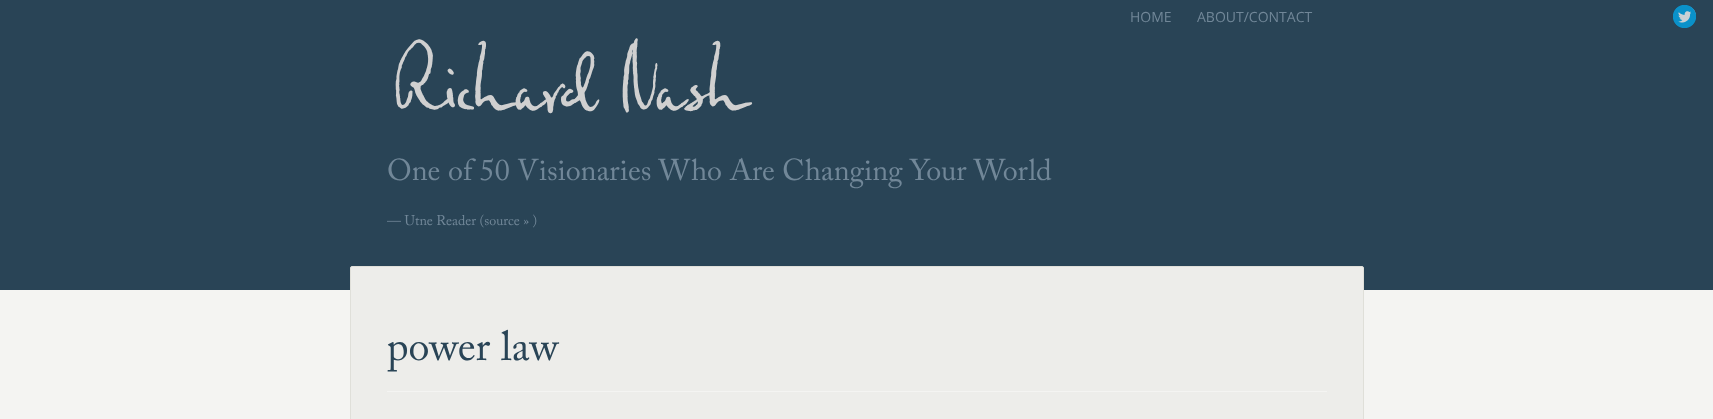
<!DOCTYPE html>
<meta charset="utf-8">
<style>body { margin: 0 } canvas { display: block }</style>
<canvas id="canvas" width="1713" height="419"></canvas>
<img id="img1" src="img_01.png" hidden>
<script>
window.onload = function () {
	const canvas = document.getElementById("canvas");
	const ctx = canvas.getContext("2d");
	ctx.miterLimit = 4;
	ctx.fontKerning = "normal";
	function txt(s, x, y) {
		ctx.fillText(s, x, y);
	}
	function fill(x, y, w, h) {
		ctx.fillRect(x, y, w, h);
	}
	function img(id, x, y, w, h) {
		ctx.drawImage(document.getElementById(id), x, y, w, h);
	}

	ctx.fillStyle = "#F4F4F2";
	fill(0, 0, 1713, 419);
	ctx.fillStyle = "#294456";
	fill(0, 0, 1713, 290);
	ctx.fillStyle = "#EDEDEA";
	ctx.beginPath();
	ctx.roundRect(350.5, 266.5, 1013, 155, 1.5);
	ctx.fill();
	ctx.strokeStyle = "#DFDFD9";
	ctx.stroke();
	ctx.fillStyle = "#F4F4F2";
	fill(387, 391, 940, 1);
	img("img1", 1673, 5, 23, 23);
	ctx.font = "14px Open Sans";
	ctx.fillStyle = "#718798";
	txt("HOME", 1130, 22);
	txt("ABOUT/CONTACT", 1197, 22);
	ctx.font = "90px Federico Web";
	ctx.fillStyle = "#D0D0D0";
	txt("Richard Nash", 387, 108);
	ctx.font = "30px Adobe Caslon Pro";
	ctx.fillStyle = "#718798";
	txt("One of 50 Visionaries Who Are Changing Your World", 387, 180);
	ctx.font = "14px Adobe Caslon Pro";
	txt("— Utne Reader (source » )", 387, 225);
	ctx.font = "42px Adobe Caslon Pro";
	ctx.fillStyle = "#294456";
	txt("power law", 387, 360);
};
</script>
